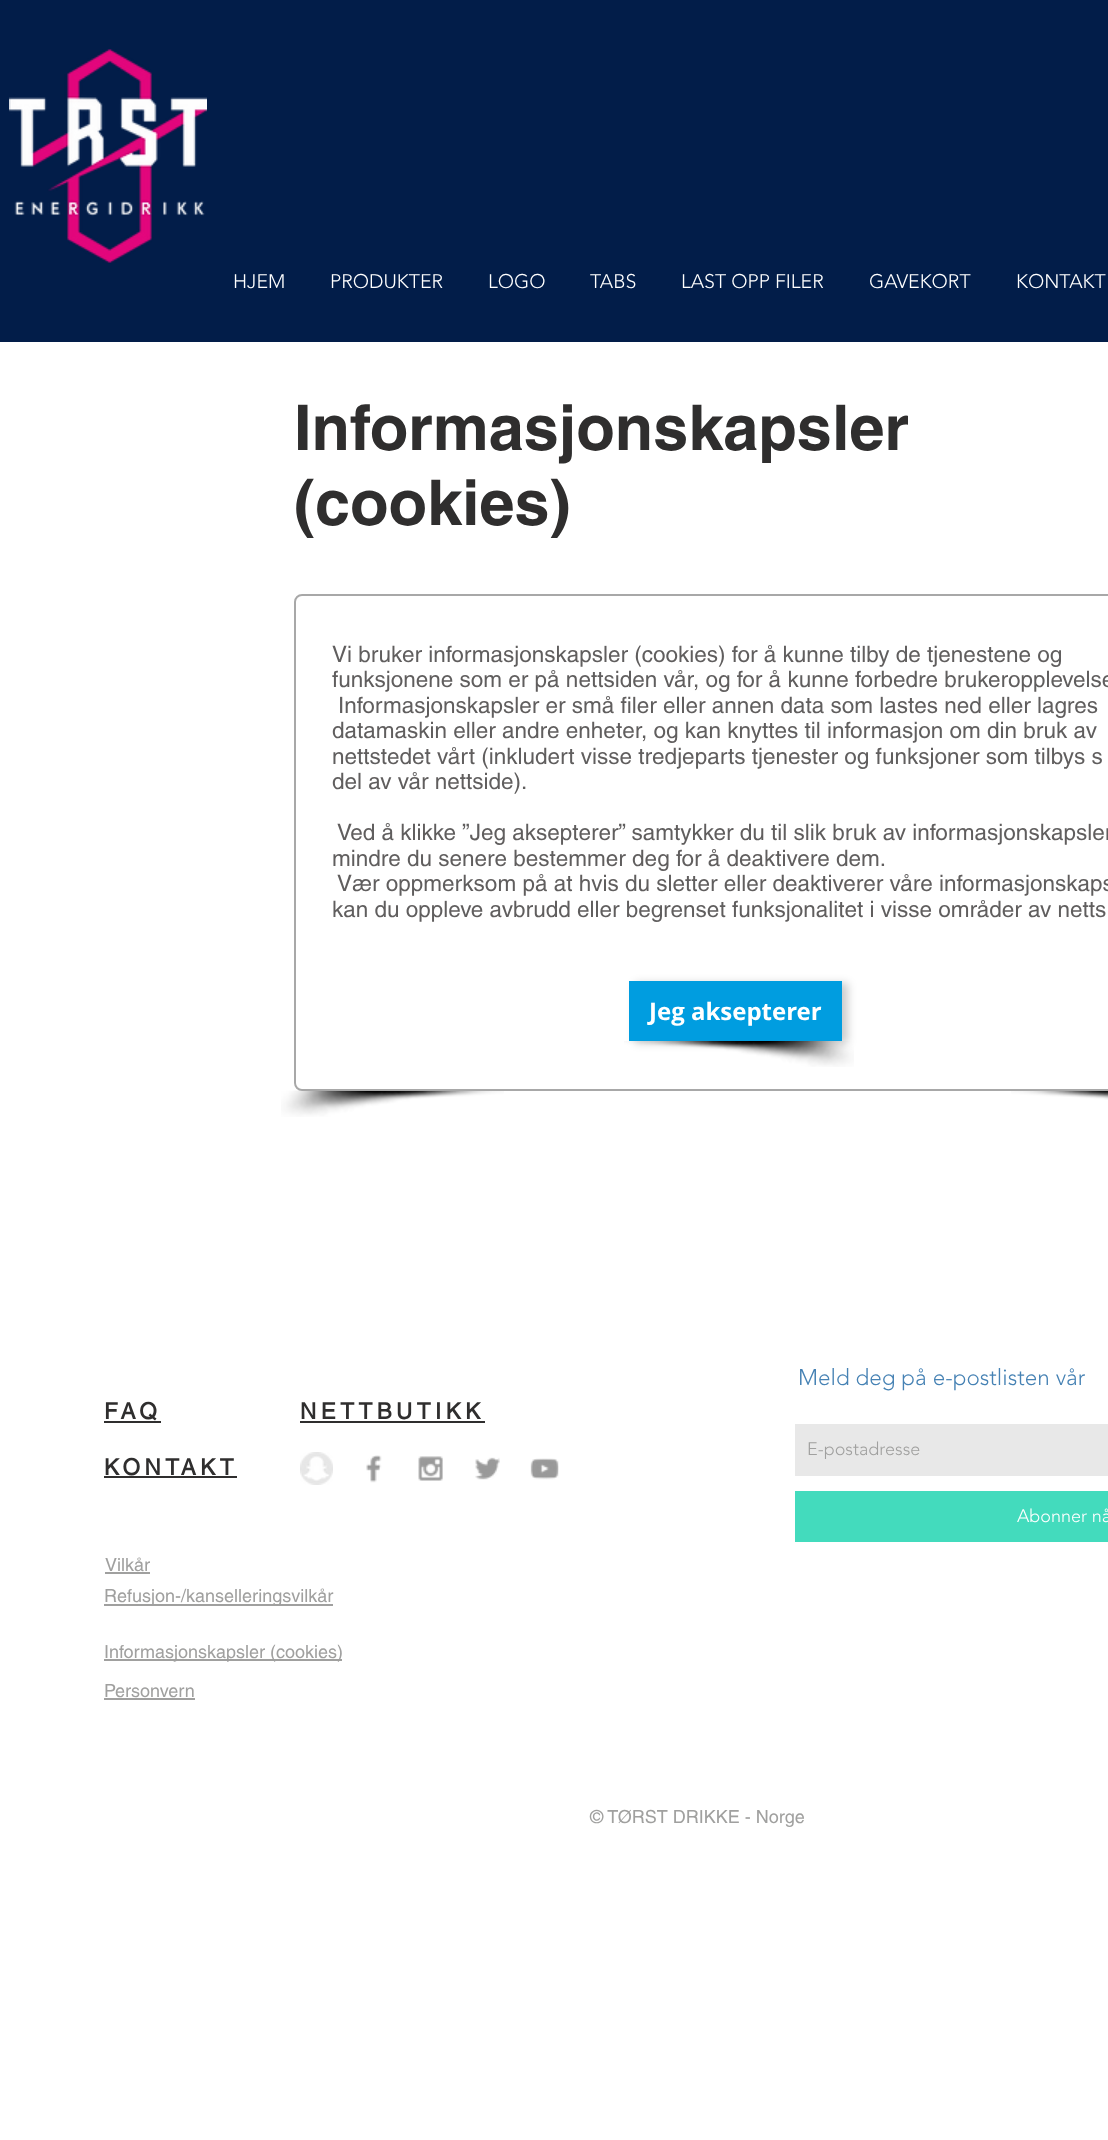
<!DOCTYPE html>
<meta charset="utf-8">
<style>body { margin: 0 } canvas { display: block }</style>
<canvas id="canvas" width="1108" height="2140"></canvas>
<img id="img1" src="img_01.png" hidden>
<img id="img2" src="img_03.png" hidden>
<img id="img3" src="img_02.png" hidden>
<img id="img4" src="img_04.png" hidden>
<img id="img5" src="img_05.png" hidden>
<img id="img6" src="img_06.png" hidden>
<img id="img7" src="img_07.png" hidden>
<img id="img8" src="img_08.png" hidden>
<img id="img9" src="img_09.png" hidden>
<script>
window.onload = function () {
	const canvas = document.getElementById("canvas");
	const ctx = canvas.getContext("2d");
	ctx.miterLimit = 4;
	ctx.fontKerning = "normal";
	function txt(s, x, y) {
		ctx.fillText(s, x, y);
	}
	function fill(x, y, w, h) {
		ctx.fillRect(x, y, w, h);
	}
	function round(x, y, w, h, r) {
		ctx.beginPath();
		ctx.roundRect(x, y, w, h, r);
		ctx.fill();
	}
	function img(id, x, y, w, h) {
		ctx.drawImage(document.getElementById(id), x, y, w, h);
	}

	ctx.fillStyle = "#FFFFFF";
	fill(0, 0, 1108, 2140);
	ctx.fillStyle = "#021D49";
	fill(0, 0, 1108, 342);
	img("img1", 9, 49, 198, 214);
	img("img2", 281, 1090, 223, 27);
	ctx.fillStyle = "#FFFFFF";
	round(294, 594, 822, 497, 8);
	ctx.beginPath();
	ctx.roundRect(295, 595, 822, 495, 7);
	ctx.strokeStyle = "rgba(0, 0, 0, 0.34)";
	ctx.lineWidth = 2;
	ctx.stroke();
	img("img3", 624, 1041, 230, 26);
	ctx.fillStyle = "rgba(0, 0, 0, 0.2)";
	ctx.filter = "blur(4.5px)";
	ctx.beginPath();
	ctx.rect(635, 983, 213, 60);
	ctx.fill();
	ctx.filter = "none";
	ctx.fillStyle = "#009DE0";
	fill(629, 981, 213, 60);
	img("img4", 1011, 1091, 97, 9);
	ctx.fillStyle = "#2F2E2E";
	fill(104, 1421, 57, 2);
	fill(300, 1421, 185, 2);
	ctx.fillStyle = "#E8E8E8";
	fill(795, 1424, 313, 52);
	ctx.fillStyle = "#43DBBD";
	fill(795, 1491, 313, 51);
	ctx.fillStyle = "#2F2E2E";
	fill(104, 1476, 133, 2);
	img("img5", 300, 1452, 33, 33);
	img("img6", 366, 1455, 16, 28);
	img("img7", 418, 1456, 25, 25);
	img("img8", 475, 1457, 25, 23);
	img("img9", 530, 1458, 29, 22);
	ctx.fillStyle = "#A0A09F";
	fill(105, 1572, 45, 2);
	fill(104, 1604, 229, 2);
	fill(104, 1659, 238, 2);
	fill(104, 1698, 91, 2);
	ctx.font = "300 19.5px 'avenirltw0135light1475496'";
	ctx.fillStyle = "#FFFFFF";
	txt("HJEM", 233, 288);
	txt("PRODUKTER", 330, 288);
	txt("LOGO", 488, 288);
	txt("TABS", 590, 288);
	txt("LAST OPP FILER", 681, 288);
	txt("GAVEKORT", 869, 288);
	txt("KONTAKT", 1016, 288);
	ctx.font = "bold 63px helvetica";
	ctx.fillStyle = "#2F2E2E";
	txt("Informasjonskapsler", 294, 450);
	txt("(cookies)", 294, 525);
	ctx.font = "22.5px helvetica";
	ctx.fillStyle = "#605E5E";
	txt("Vi bruker informasjonskapsler (cookies) for å kunne tilby de tjenestene og", 332, 662);
	txt("funksjonene som er på nettsiden vår, og for å kunne forbedre brukeropplevelse", 332, 687);
	txt("Informasjonskapsler er små filer eller annen data som lastes ned eller lagres", 338, 713);
	txt("datamaskin eller andre enheter, og kan knyttes til informasjon om din bruk av", 332, 738);
	txt("nettstedet vårt (inkludert visse tredjeparts tjenester og funksjoner som tilbys s", 332, 764);
	txt("del av vår nettside).", 332, 789);
	txt("Ved å klikke ”Jeg aksepterer” samtykker du til slik bruk av informasjonskapsler", 337, 840);
	txt("mindre du senere bestemmer deg for å deaktivere dem.", 332, 866);
	txt("Vær oppmerksom på at hvis du sletter eller deaktiverer våre informasjonskaps", 337, 891);
	txt("kan du oppleve avbrudd eller begrenset funksjonalitet i visse områder av netts", 332, 917);
	ctx.font = "bold 24px Open Sans";
	ctx.fillStyle = "#FFFFFF";
	txt("Jeg aksepterer", 649, 1020);
	ctx.letterSpacing = "4.5px";
	ctx.font = "bold 22.5px 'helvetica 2'";
	ctx.fillStyle = "#2F2E2E";
	txt("FAQ", 104, 1419);
	txt("NETTBUTIKK", 300, 1419);
	ctx.letterSpacing = "0px";
	ctx.font = "300 22.5px 'avenirltw0135light1475496'";
	ctx.fillStyle = "#4682B4";
	txt("Meld deg på e-postlisten vår", 798, 1385);
	ctx.font = "300 18px 'avenirltw0135light1475496'";
	ctx.fillStyle = "#A0A09F";
	txt("E-postadresse", 807, 1455);
	ctx.fillStyle = "#FFFFFF";
	txt("Abonner nå", 1017, 1522);
	ctx.letterSpacing = "4.5px";
	ctx.font = "bold 22.5px 'helvetica 2'";
	ctx.fillStyle = "#2F2E2E";
	txt("KONTAKT", 104, 1475);
	ctx.letterSpacing = "0px";
	ctx.font = "18px helvetica";
	ctx.fillStyle = "#A0A09F";
	txt("Vilkår", 105, 1571);
	txt("Refusjon-/kanselleringsvilkår", 104, 1602);
	txt("Informasjonskapsler (cookies)", 104, 1658);
	txt("Personvern", 104, 1697);
	txt("© TØRST DRIKKE - Norge", 590, 1823);
};
</script>
